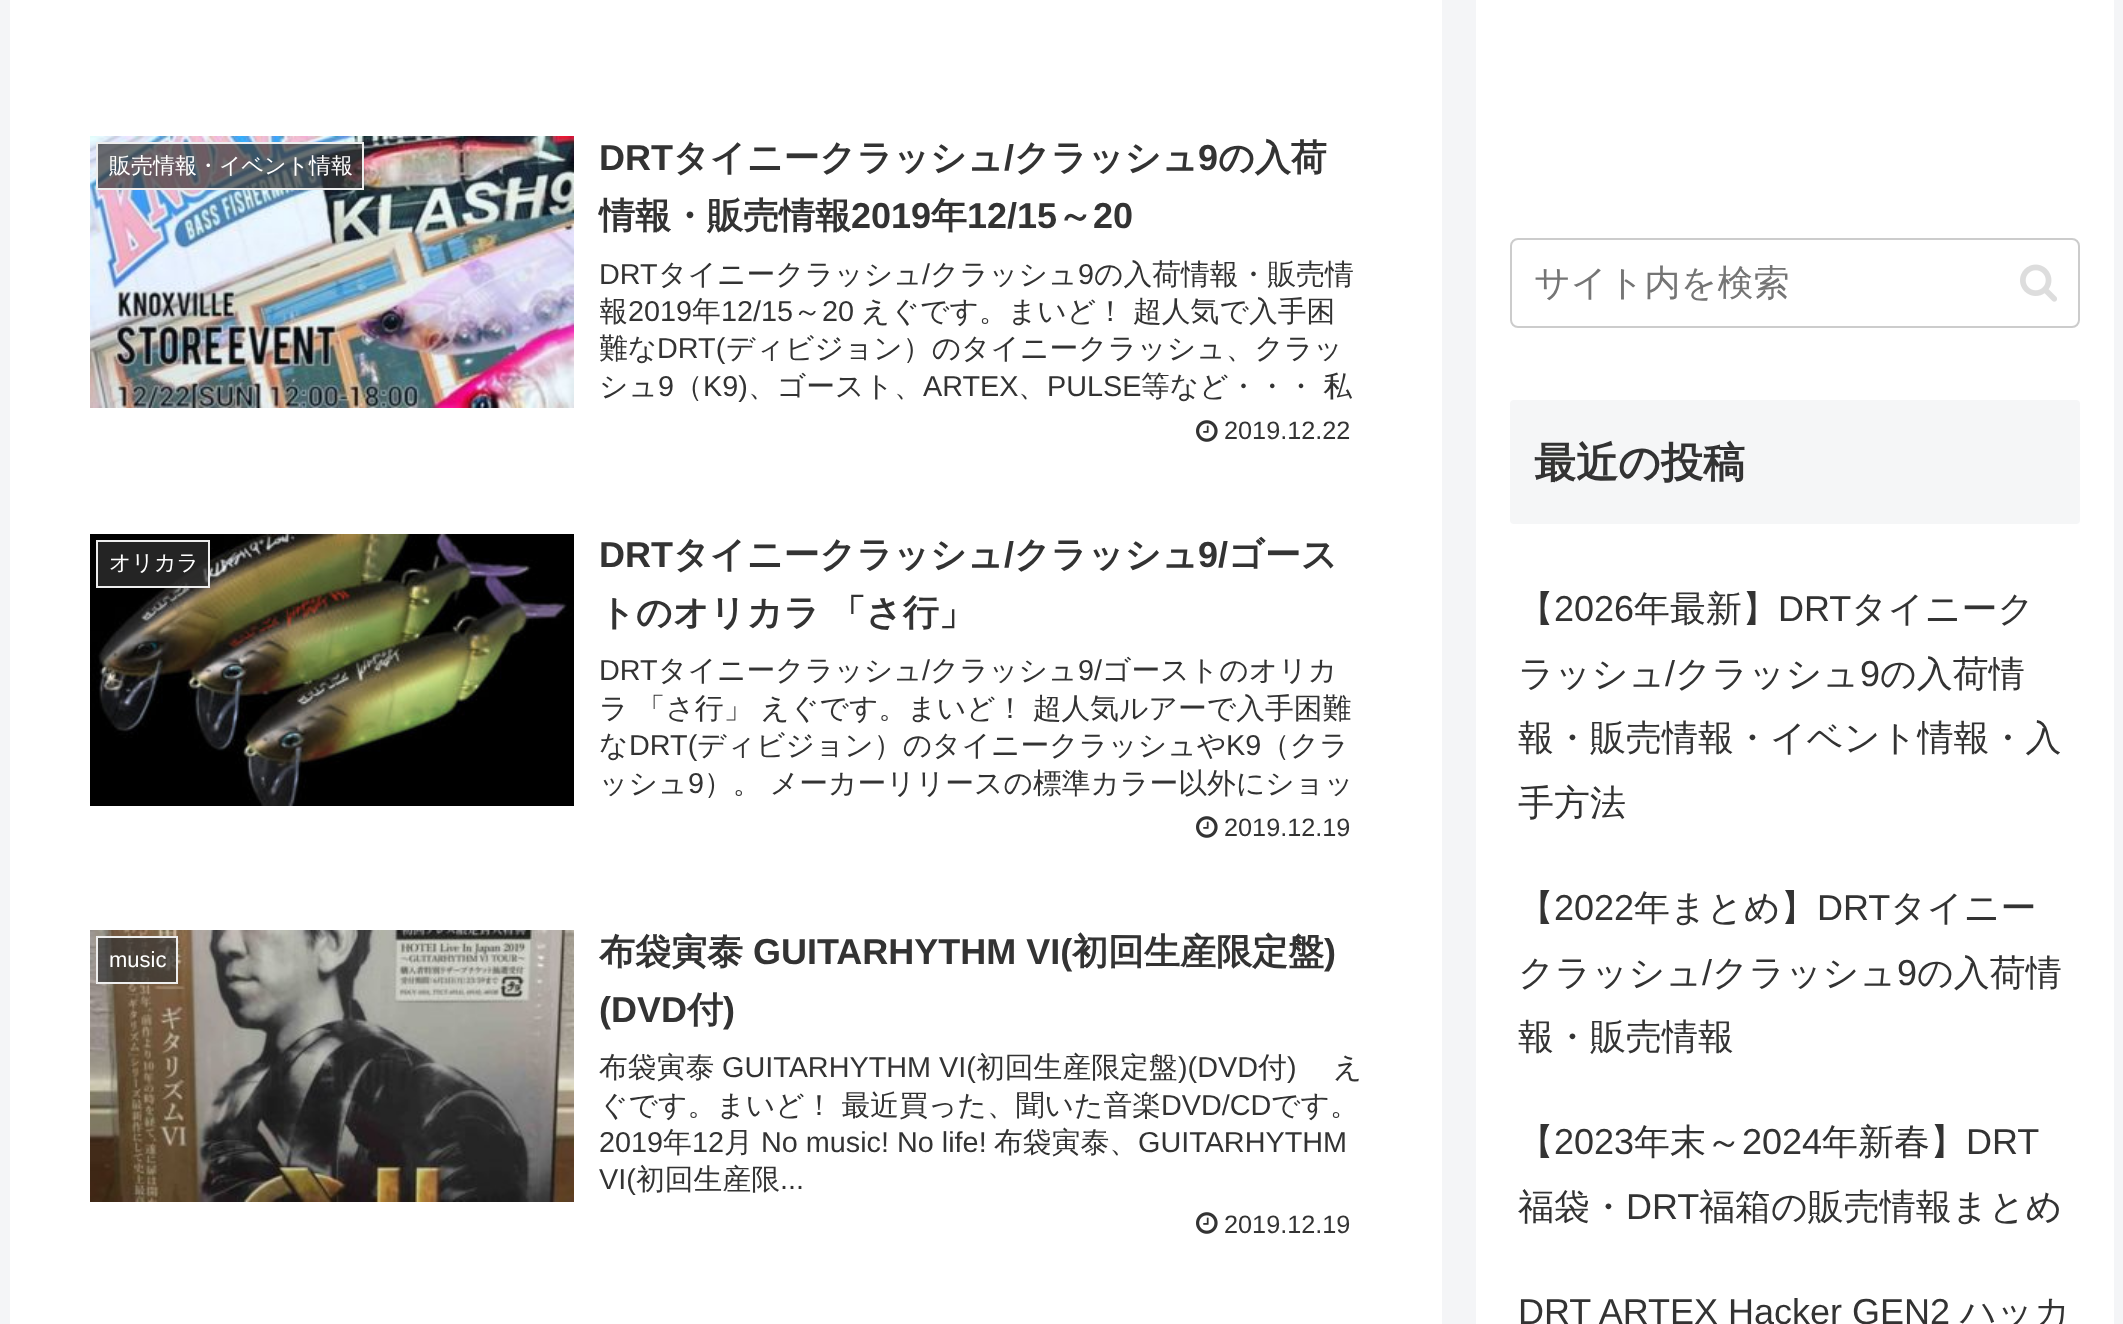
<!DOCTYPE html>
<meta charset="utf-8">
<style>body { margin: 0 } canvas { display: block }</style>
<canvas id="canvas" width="2123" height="1324"></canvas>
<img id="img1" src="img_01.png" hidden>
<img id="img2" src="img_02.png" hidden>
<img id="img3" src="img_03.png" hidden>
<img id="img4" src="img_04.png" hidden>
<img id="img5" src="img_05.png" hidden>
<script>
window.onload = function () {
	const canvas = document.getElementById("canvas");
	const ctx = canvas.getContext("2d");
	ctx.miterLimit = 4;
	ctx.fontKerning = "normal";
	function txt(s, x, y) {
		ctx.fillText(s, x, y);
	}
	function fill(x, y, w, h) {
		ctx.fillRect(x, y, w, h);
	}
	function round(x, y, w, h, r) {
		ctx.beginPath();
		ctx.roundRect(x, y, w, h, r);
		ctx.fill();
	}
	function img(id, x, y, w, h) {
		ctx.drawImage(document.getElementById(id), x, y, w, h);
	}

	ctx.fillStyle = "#F4F5F7";
	fill(0, 0, 2123, 1324);
	ctx.fillStyle = "#FFFFFF";
	fill(10, 0, 1432, 1324);
	img("img1", 90, 136, 484, 272);
	ctx.fillStyle = "rgba(51, 51, 51, 0.7)";
	ctx.beginPath();
	ctx.rect(97, 143, 266, 46);
	ctx.fill();
	ctx.strokeStyle = "#EEEEEE";
	ctx.lineWidth = 2;
	ctx.stroke();
	img("img2", 1196, 420, 22, 22);
	img("img3", 90, 534, 484, 272);
	ctx.beginPath();
	ctx.rect(97, 541, 112, 46);
	ctx.fill();
	ctx.stroke();
	img("img2", 1196, 816, 22, 22);
	img("img4", 90, 930, 484, 272);
	ctx.beginPath();
	ctx.rect(97, 937, 80, 46);
	ctx.fill();
	ctx.stroke();
	img("img2", 1196, 1212, 22, 22);
	ctx.fillStyle = "#FFFFFF";
	fill(1476, 0, 638, 1324);
	ctx.beginPath();
	ctx.roundRect(1511, 239, 568, 88, 7);
	ctx.strokeStyle = "#CCCCCC";
	ctx.stroke();
	img("img5", 2020, 264, 37, 38);
	ctx.fillStyle = "#F5F6F7";
	round(1510, 400, 570, 124, 4);
	ctx.font = "500 22px WenQuanYi Zen Hei";
	ctx.fillStyle = "#FFFFFF";
	txt("販売情報・イベント情報", 109, 173);
	ctx.font = "bold 36px Liberation Sans";
	ctx.fillStyle = "#333333";
	txt("DRT", 599, 170);
	ctx.font = "bold 36px WenQuanYi Zen Hei";
	txt("タイニークラッシュ", 673, 170);
	ctx.font = "bold 36px Liberation Sans";
	txt("/", 1004, 170);
	ctx.font = "bold 36px WenQuanYi Zen Hei";
	txt("クラッシュ", 1014, 170);
	ctx.font = "bold 36px Liberation Sans";
	txt("9", 1198, 170);
	ctx.font = "bold 36px WenQuanYi Zen Hei";
	txt("の入荷", 1218, 170);
	txt("情報・販売情報", 599, 228);
	ctx.font = "bold 36px Liberation Sans";
	txt("2019", 851, 228);
	ctx.font = "bold 36px WenQuanYi Zen Hei";
	txt("年", 931, 228);
	ctx.font = "bold 36px Liberation Sans";
	txt("12/15", 967, 228);
	ctx.font = "bold 36px WenQuanYi Zen Hei";
	txt("～", 1057, 228);
	ctx.font = "bold 36px Liberation Sans";
	txt("20", 1093, 228);
	ctx.font = "28.8px Liberation Sans";
	txt("DRT", 599, 284);
	ctx.font = "500 28.8px WenQuanYi Zen Hei";
	txt("タイニークラッシュ", 658, 284);
	ctx.font = "28.8px Liberation Sans";
	txt("/", 922, 284);
	ctx.font = "500 28.8px WenQuanYi Zen Hei";
	txt("クラッシュ", 930, 284);
	ctx.font = "28.8px Liberation Sans";
	txt("9", 1078, 284);
	ctx.font = "500 28.8px WenQuanYi Zen Hei";
	txt("の入荷情報・販売情", 1094, 284);
	ctx.save();
	ctx.beginPath();
	ctx.rect(600, 256, 762, 150);
	ctx.clip();
	txt("報", 599, 321);
	ctx.restore();
	ctx.font = "28.8px Liberation Sans";
	txt("2019", 628, 321);
	ctx.font = "500 28.8px WenQuanYi Zen Hei";
	txt("年", 692, 321);
	ctx.font = "28.8px Liberation Sans";
	txt("12/15", 721, 321);
	ctx.font = "500 28.8px WenQuanYi Zen Hei";
	txt("～", 793, 321);
	ctx.font = "28.8px Liberation Sans";
	txt("20", 822, 321);
	ctx.wordSpacing = "-0.5px";
	ctx.font = "500 28.8px WenQuanYi Zen Hei";
	txt("えぐです。まいど！ 超人気で入手困", 861, 321);
	ctx.wordSpacing = "0px";
	txt("難な", 599, 358);
	ctx.font = "28.8px Liberation Sans";
	txt("DRT(", 657, 358);
	ctx.font = "500 28.8px WenQuanYi Zen Hei";
	txt("ディビジョン）のタイニークラッシュ、クラッ", 726, 358);
	txt("シュ", 599, 396);
	ctx.font = "28.8px Liberation Sans";
	txt("9", 658, 396);
	ctx.font = "500 28.8px WenQuanYi Zen Hei";
	txt("（", 674, 396);
	ctx.font = "28.8px Liberation Sans";
	txt("K9)", 703, 396);
	ctx.font = "500 28.8px WenQuanYi Zen Hei";
	txt("、ゴースト、", 748, 396);
	ctx.font = "28.8px Liberation Sans";
	txt("ARTEX", 923, 396);
	ctx.font = "500 28.8px WenQuanYi Zen Hei";
	txt("、", 1018, 396);
	ctx.font = "28.8px Liberation Sans";
	txt("PULSE", 1047, 396);
	ctx.wordSpacing = "-0.5px";
	ctx.font = "500 28.8px WenQuanYi Zen Hei";
	txt("等など・・・ 私", 1141, 396);
	ctx.wordSpacing = "0px";
	ctx.font = "25.25px Liberation Sans";
	txt("2019.12.22", 1224, 439);
	ctx.font = "500 22px WenQuanYi Zen Hei";
	ctx.fillStyle = "#FFFFFF";
	txt("オリカラ", 109, 570);
	ctx.font = "bold 36px Liberation Sans";
	ctx.fillStyle = "#333333";
	txt("DRT", 599, 567);
	ctx.font = "bold 36px WenQuanYi Zen Hei";
	txt("タイニークラッシュ", 673, 567);
	ctx.font = "bold 36px Liberation Sans";
	txt("/", 1004, 567);
	ctx.font = "bold 36px WenQuanYi Zen Hei";
	txt("クラッシュ", 1014, 567);
	ctx.font = "bold 36px Liberation Sans";
	txt("9/", 1198, 567);
	ctx.font = "bold 36px WenQuanYi Zen Hei";
	txt("ゴース", 1228, 567);
	ctx.wordSpacing = "-1px";
	txt("トのオリカラ 「さ行」", 599, 625);
	ctx.wordSpacing = "0px";
	ctx.font = "28.8px Liberation Sans";
	txt("DRT", 599, 680);
	ctx.font = "500 28.8px WenQuanYi Zen Hei";
	txt("タイニークラッシュ", 658, 680);
	ctx.font = "28.8px Liberation Sans";
	txt("/", 922, 680);
	ctx.font = "500 28.8px WenQuanYi Zen Hei";
	txt("クラッシュ", 930, 680);
	ctx.font = "28.8px Liberation Sans";
	txt("9/", 1078, 680);
	ctx.font = "500 28.8px WenQuanYi Zen Hei";
	txt("ゴーストのオリカ", 1102, 680);
	ctx.wordSpacing = "-0.5px";
	txt("ラ 「さ行」 えぐです。まいど！ 超人気ルアーで入手困難", 599, 718);
	ctx.wordSpacing = "0px";
	txt("な", 599, 755);
	ctx.font = "28.8px Liberation Sans";
	txt("DRT(", 629, 755);
	ctx.font = "500 28.8px WenQuanYi Zen Hei";
	txt("ディビジョン）のタイニークラッシュや", 697, 755);
	ctx.font = "28.8px Liberation Sans";
	txt("K9", 1226, 755);
	ctx.font = "500 28.8px WenQuanYi Zen Hei";
	txt("（クラ", 1261, 755);
	txt("ッシュ", 599, 793);
	ctx.font = "28.8px Liberation Sans";
	txt("9", 688, 793);
	ctx.wordSpacing = "-0.5px";
	ctx.font = "500 28.8px WenQuanYi Zen Hei";
	txt("）。 メーカーリリースの標準カラー以外にショッ", 704, 793);
	ctx.wordSpacing = "0px";
	ctx.font = "25.25px Liberation Sans";
	txt("2019.12.19", 1224, 836);
	ctx.font = "22px Liberation Sans";
	ctx.fillStyle = "#FFFFFF";
	txt("music", 109, 967);
	ctx.font = "bold 36px WenQuanYi Zen Hei";
	ctx.fillStyle = "#333333";
	txt("布袋寅泰", 599, 964);
	ctx.font = "bold 36px Liberation Sans";
	txt("GUITARHYTHM VI(", 753, 964);
	ctx.font = "bold 36px WenQuanYi Zen Hei";
	txt("初回生産限定盤", 1072, 964);
	ctx.font = "bold 36px Liberation Sans";
	txt(")", 1324, 964);
	txt("(DVD", 599, 1022);
	ctx.font = "bold 36px WenQuanYi Zen Hei";
	txt("付", 687, 1022);
	ctx.font = "bold 36px Liberation Sans";
	txt(")", 723, 1022);
	ctx.font = "500 28.8px WenQuanYi Zen Hei";
	txt("布袋寅泰", 599, 1077);
	ctx.font = "28.8px Liberation Sans";
	txt("GUITARHYTHM VI(", 722, 1077);
	ctx.font = "500 28.8px WenQuanYi Zen Hei";
	txt("初回生産限定盤", 976, 1077);
	ctx.font = "28.8px Liberation Sans";
	txt(")(DVD", 1178, 1077);
	ctx.font = "500 28.8px WenQuanYi Zen Hei";
	txt("付", 1258, 1077);
	ctx.font = "28.8px Liberation Sans";
	txt(")", 1287, 1077);
	ctx.font = "500 28.8px WenQuanYi Zen Hei";
	txt("え", 1333, 1077);
	ctx.wordSpacing = "-0.5px";
	txt("ぐです。まいど！ 最近買った、聞いた音楽", 599, 1115);
	ctx.wordSpacing = "0px";
	ctx.font = "28.8px Liberation Sans";
	txt("DVD/CD", 1161, 1115);
	ctx.font = "500 28.8px WenQuanYi Zen Hei";
	txt("です。", 1271, 1115);
	ctx.font = "28.8px Liberation Sans";
	txt("2019", 599, 1152);
	ctx.font = "500 28.8px WenQuanYi Zen Hei";
	txt("年", 663, 1152);
	ctx.font = "28.8px Liberation Sans";
	txt("12", 692, 1152);
	ctx.font = "500 28.8px WenQuanYi Zen Hei";
	txt("月", 724, 1152);
	ctx.font = "28.8px Liberation Sans";
	txt("No music! No life!", 761, 1152);
	ctx.font = "500 28.8px WenQuanYi Zen Hei";
	txt("布袋寅泰、", 994, 1152);
	ctx.font = "28.8px Liberation Sans";
	txt("GUITARHYTHM", 1138, 1152);
	txt("VI(", 599, 1189);
	ctx.font = "500 28.8px WenQuanYi Zen Hei";
	txt("初回生産限", 636, 1189);
	ctx.font = "28.8px Liberation Sans";
	txt("...", 780, 1189);
	ctx.font = "25.25px Liberation Sans";
	txt("2019.12.19", 1224, 1233);
	ctx.font = "500 36px WenQuanYi Zen Hei";
	ctx.fillStyle = "#757575";
	txt("サイト内を検索", 1534, 295);
	ctx.font = "bold 42px WenQuanYi Zen Hei";
	ctx.fillStyle = "#333333";
	txt("最近の投稿", 1534, 477);
	ctx.font = "500 36px WenQuanYi Zen Hei";
	txt("【", 1518, 621);
	ctx.font = "36px Liberation Sans";
	txt("2026", 1554, 621);
	ctx.font = "500 36px WenQuanYi Zen Hei";
	txt("年最新】", 1634, 621);
	ctx.font = "36px Liberation Sans";
	txt("DRT", 1778, 621);
	ctx.font = "500 36px WenQuanYi Zen Hei";
	txt("タイニーク", 1851, 621);
	txt("ラッシュ", 1518, 686);
	ctx.font = "36px Liberation Sans";
	txt("/", 1665, 686);
	ctx.font = "500 36px WenQuanYi Zen Hei";
	txt("クラッシュ", 1675, 686);
	ctx.font = "36px Liberation Sans";
	txt("9", 1860, 686);
	ctx.font = "500 36px WenQuanYi Zen Hei";
	txt("の入荷情", 1880, 686);
	txt("報・販売情報・イベント情報・入", 1518, 750);
	txt("手方法", 1518, 815);
	txt("【", 1518, 920);
	ctx.font = "36px Liberation Sans";
	txt("2022", 1554, 920);
	ctx.font = "500 36px WenQuanYi Zen Hei";
	txt("年まとめ】", 1634, 920);
	ctx.font = "36px Liberation Sans";
	txt("DRT", 1817, 920);
	ctx.font = "500 36px WenQuanYi Zen Hei";
	txt("タイニー", 1890, 920);
	txt("クラッシュ", 1518, 985);
	ctx.font = "36px Liberation Sans";
	txt("/", 1702, 985);
	ctx.font = "500 36px WenQuanYi Zen Hei";
	txt("クラッシュ", 1712, 985);
	ctx.font = "36px Liberation Sans";
	txt("9", 1897, 985);
	ctx.font = "500 36px WenQuanYi Zen Hei";
	txt("の入荷情", 1917, 985);
	txt("報・販売情報", 1518, 1049);
	txt("【", 1518, 1154);
	ctx.font = "36px Liberation Sans";
	txt("2023", 1554, 1154);
	ctx.font = "500 36px WenQuanYi Zen Hei";
	txt("年末～", 1634, 1154);
	ctx.font = "36px Liberation Sans";
	txt("2024", 1742, 1154);
	ctx.font = "500 36px WenQuanYi Zen Hei";
	txt("年新春】", 1822, 1154);
	ctx.font = "36px Liberation Sans";
	txt("DRT", 1966, 1154);
	ctx.font = "500 36px WenQuanYi Zen Hei";
	txt("福袋・", 1518, 1219);
	ctx.font = "36px Liberation Sans";
	txt("DRT", 1626, 1219);
	ctx.font = "500 36px WenQuanYi Zen Hei";
	txt("福箱の販売情報まとめ", 1699, 1219);
	ctx.font = "36px Liberation Sans";
	txt("DRT ARTEX Hacker GEN2", 1518, 1324);
	ctx.font = "500 36px WenQuanYi Zen Hei";
	txt("ハッカ", 1960, 1324);
};
</script>
